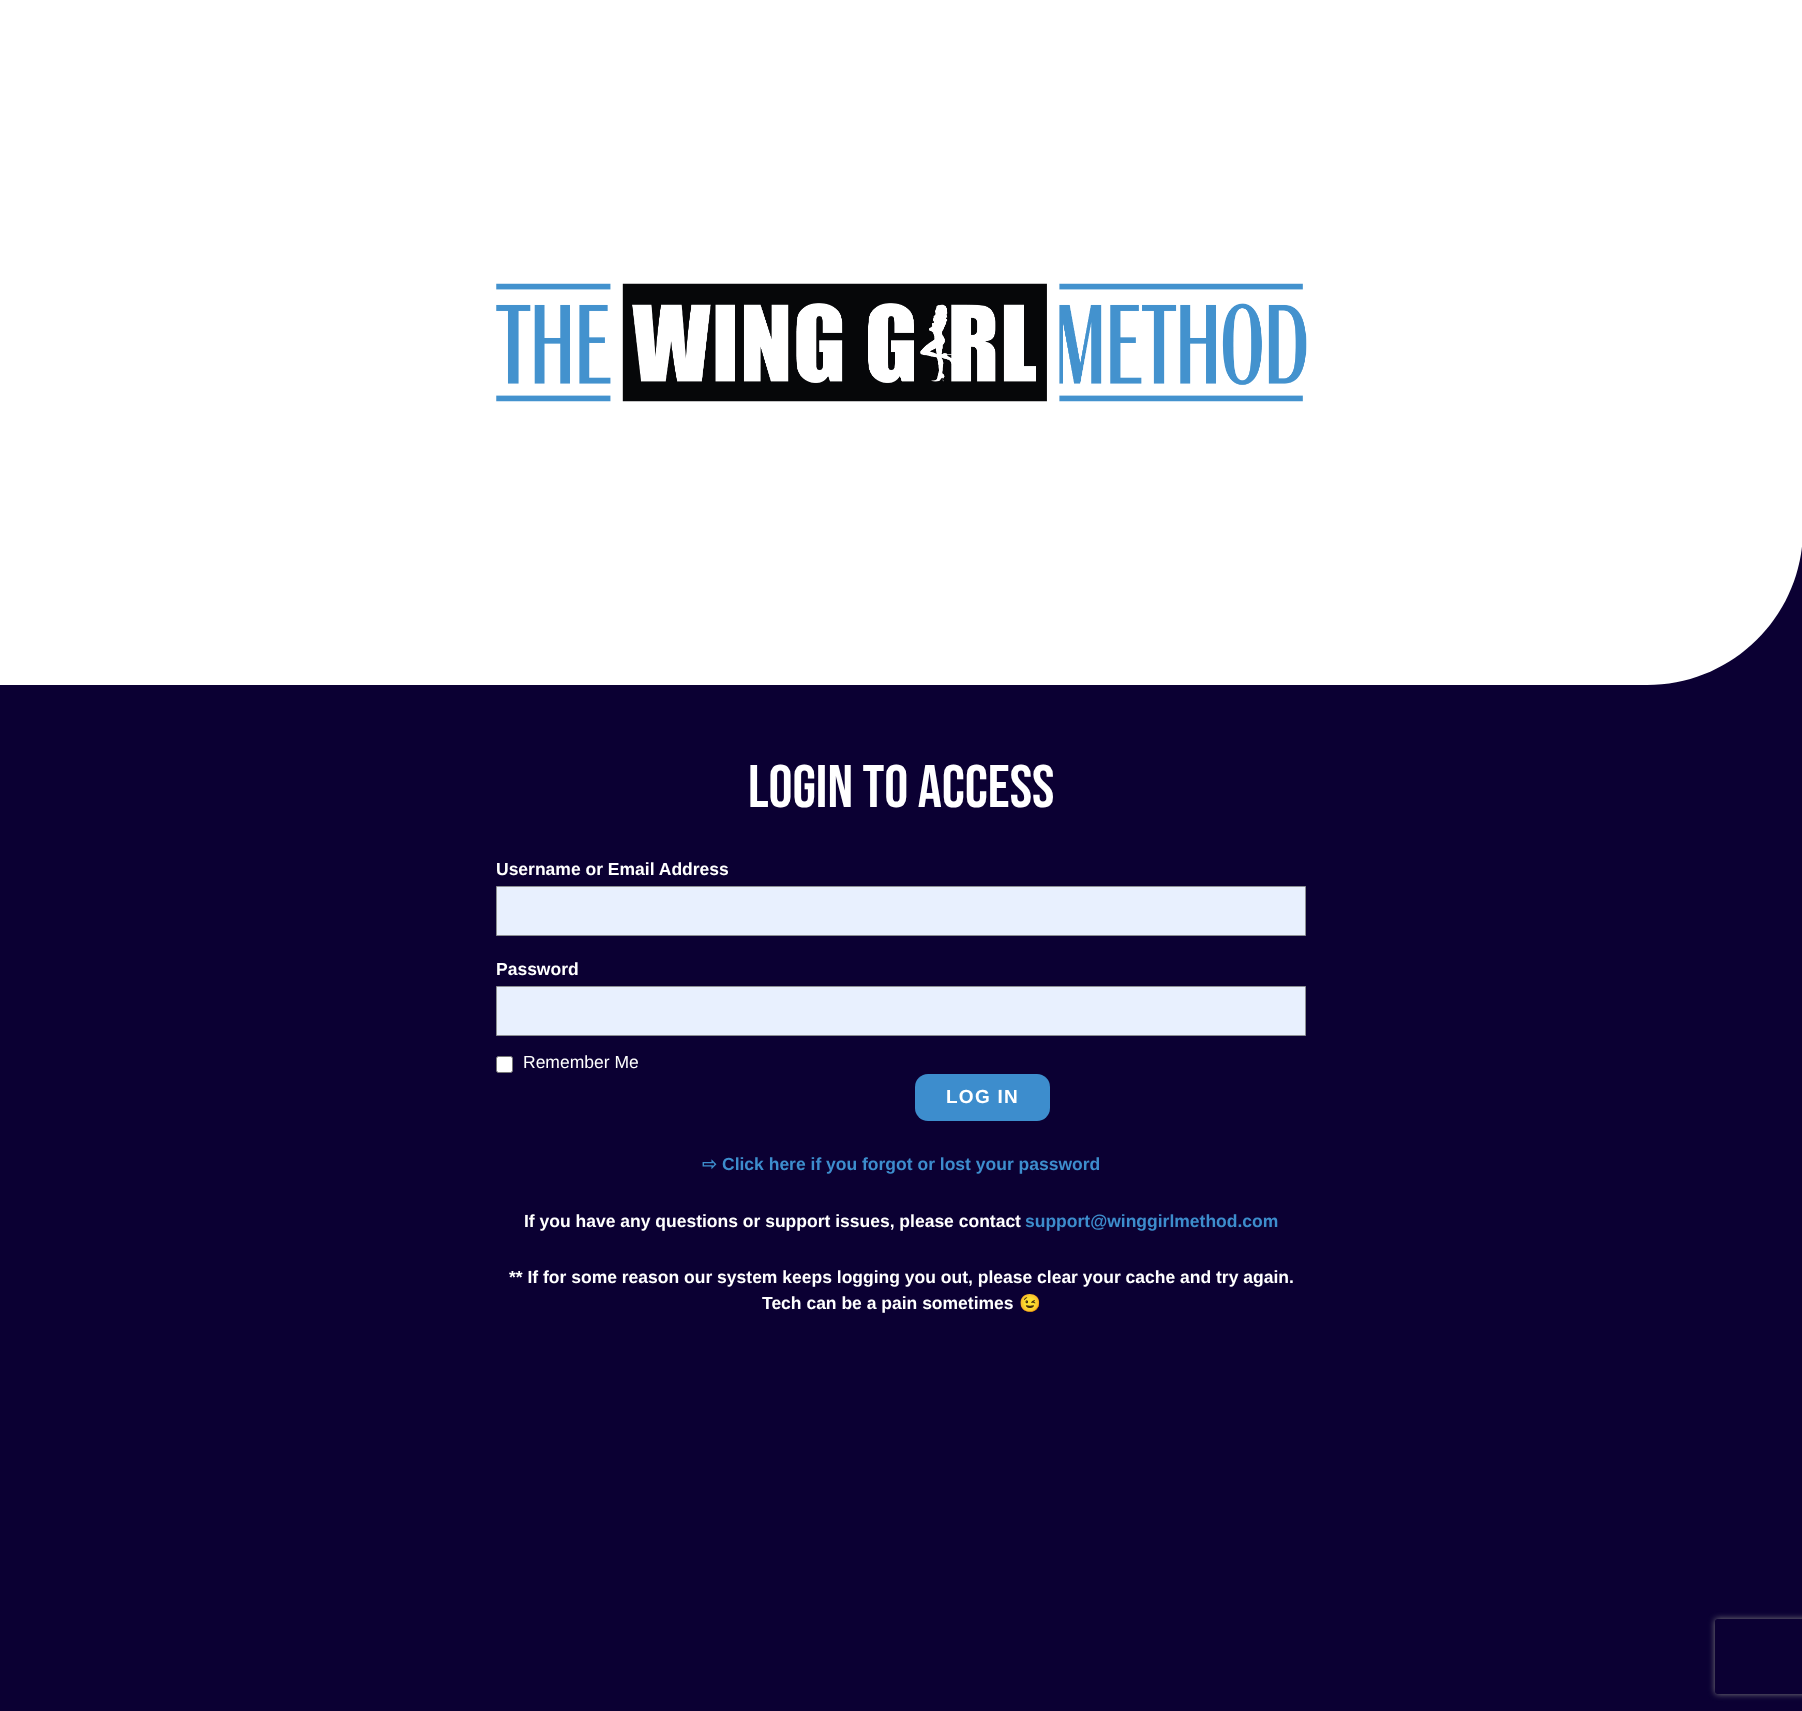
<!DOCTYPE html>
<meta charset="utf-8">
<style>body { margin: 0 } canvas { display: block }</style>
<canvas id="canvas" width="1802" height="1711"></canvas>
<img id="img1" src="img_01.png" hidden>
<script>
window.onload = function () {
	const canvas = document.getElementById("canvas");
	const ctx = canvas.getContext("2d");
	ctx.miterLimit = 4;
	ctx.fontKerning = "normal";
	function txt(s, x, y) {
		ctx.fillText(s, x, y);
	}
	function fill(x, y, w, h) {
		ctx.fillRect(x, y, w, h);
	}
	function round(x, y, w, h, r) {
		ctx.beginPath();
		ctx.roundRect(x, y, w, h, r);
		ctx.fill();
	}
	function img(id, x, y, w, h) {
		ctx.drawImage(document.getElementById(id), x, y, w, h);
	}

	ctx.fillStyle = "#0B0033";
	fill(0, 0, 1802, 1711);
	ctx.fillStyle = "#FFFFFF";
	ctx.beginPath();
	ctx.moveTo(0, 0);
	ctx.lineTo(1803, 0);
	ctx.lineTo(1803, 529);
	ctx.bezierCurveTo(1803, 615, 1733, 685, 1647, 685);
	ctx.lineTo(0, 685);
	ctx.closePath();
	ctx.fill();
	img("img1", 496, 283, 811, 119);
	ctx.fillStyle = "#E8F0FE";
	ctx.beginPath();
	ctx.rect(496.5, 886.5, 809, 49);
	ctx.fill();
	ctx.strokeStyle = "#8C8F94";
	ctx.stroke();
	ctx.beginPath();
	ctx.rect(496.5, 986.5, 809, 49);
	ctx.fill();
	ctx.stroke();
	ctx.fillStyle = "#FFFFFF";
	ctx.beginPath();
	ctx.roundRect(496.5, 1056.5, 16, 16, 2);
	ctx.fill();
	ctx.strokeStyle = "#767676";
	ctx.stroke();
	ctx.fillStyle = "#3D8DCD";
	round(915, 1074, 135, 47, 13);
	ctx.save();
	ctx.beginPath();
	ctx.moveTo(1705, 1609);
	ctx.lineTo(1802, 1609);
	ctx.lineTo(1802, 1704);
	ctx.lineTo(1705, 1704);
	ctx.closePath();
	ctx.moveTo(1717.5, 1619);
	ctx.lineTo(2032.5, 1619);
	ctx.bezierCurveTo(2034, 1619, 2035, 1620, 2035, 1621.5);
	ctx.lineTo(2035, 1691.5);
	ctx.bezierCurveTo(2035, 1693, 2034, 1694, 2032.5, 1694);
	ctx.lineTo(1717.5, 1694);
	ctx.bezierCurveTo(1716, 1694, 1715, 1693, 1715, 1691.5);
	ctx.lineTo(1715, 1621.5);
	ctx.bezierCurveTo(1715, 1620, 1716, 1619, 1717.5, 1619);
	ctx.closePath();
	ctx.clip("evenodd");
	ctx.fillStyle = "#808080";
	ctx.filter = "blur(3px)";
	ctx.beginPath();
	ctx.roundRect(1715, 1619, 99, 75, 2.5);
	ctx.fill();
	ctx.filter = "none";
	ctx.restore();
	ctx.font = "60px Bebas Neue";
	ctx.fillStyle = "#FFFFFF";
	txt("LOGIN TO ACCESS", 748, 807);
	ctx.font = "bold 17.5px Liberation Sans";
	txt("Username or Email Address", 496, 875);
	txt("Password", 496, 975);
	ctx.font = "17.5px Liberation Sans";
	txt("Remember Me", 523, 1068);
	ctx.letterSpacing = "1.25px";
	ctx.font = "bold 19px Liberation Sans";
	txt("LOG IN", 946, 1103);
	ctx.letterSpacing = "0px";
	ctx.font = "bold 17.5px DejaVu Sans";
	ctx.fillStyle = "#3D8DCD";
	txt("⇨", 702, 1170);
	ctx.font = "bold 17.5px Liberation Sans";
	txt("Click here if you forgot or lost your password", 722, 1170);
	ctx.fillStyle = "#FFFFFF";
	txt("If you have any questions or support issues, please contact", 524, 1227);
	ctx.fillStyle = "#3D8DCD";
	txt("support@winggirlmethod.com", 1025, 1227);
	ctx.fillStyle = "#FFFFFF";
	txt("** If for some reason our system keeps logging you out, please clear your cache and try again.", 509, 1283);
	txt("Tech can be a pain sometimes", 762, 1309);
	ctx.font = "17.5px Noto Color Emoji";
	txt("😉", 1019, 1309);
};
</script>
